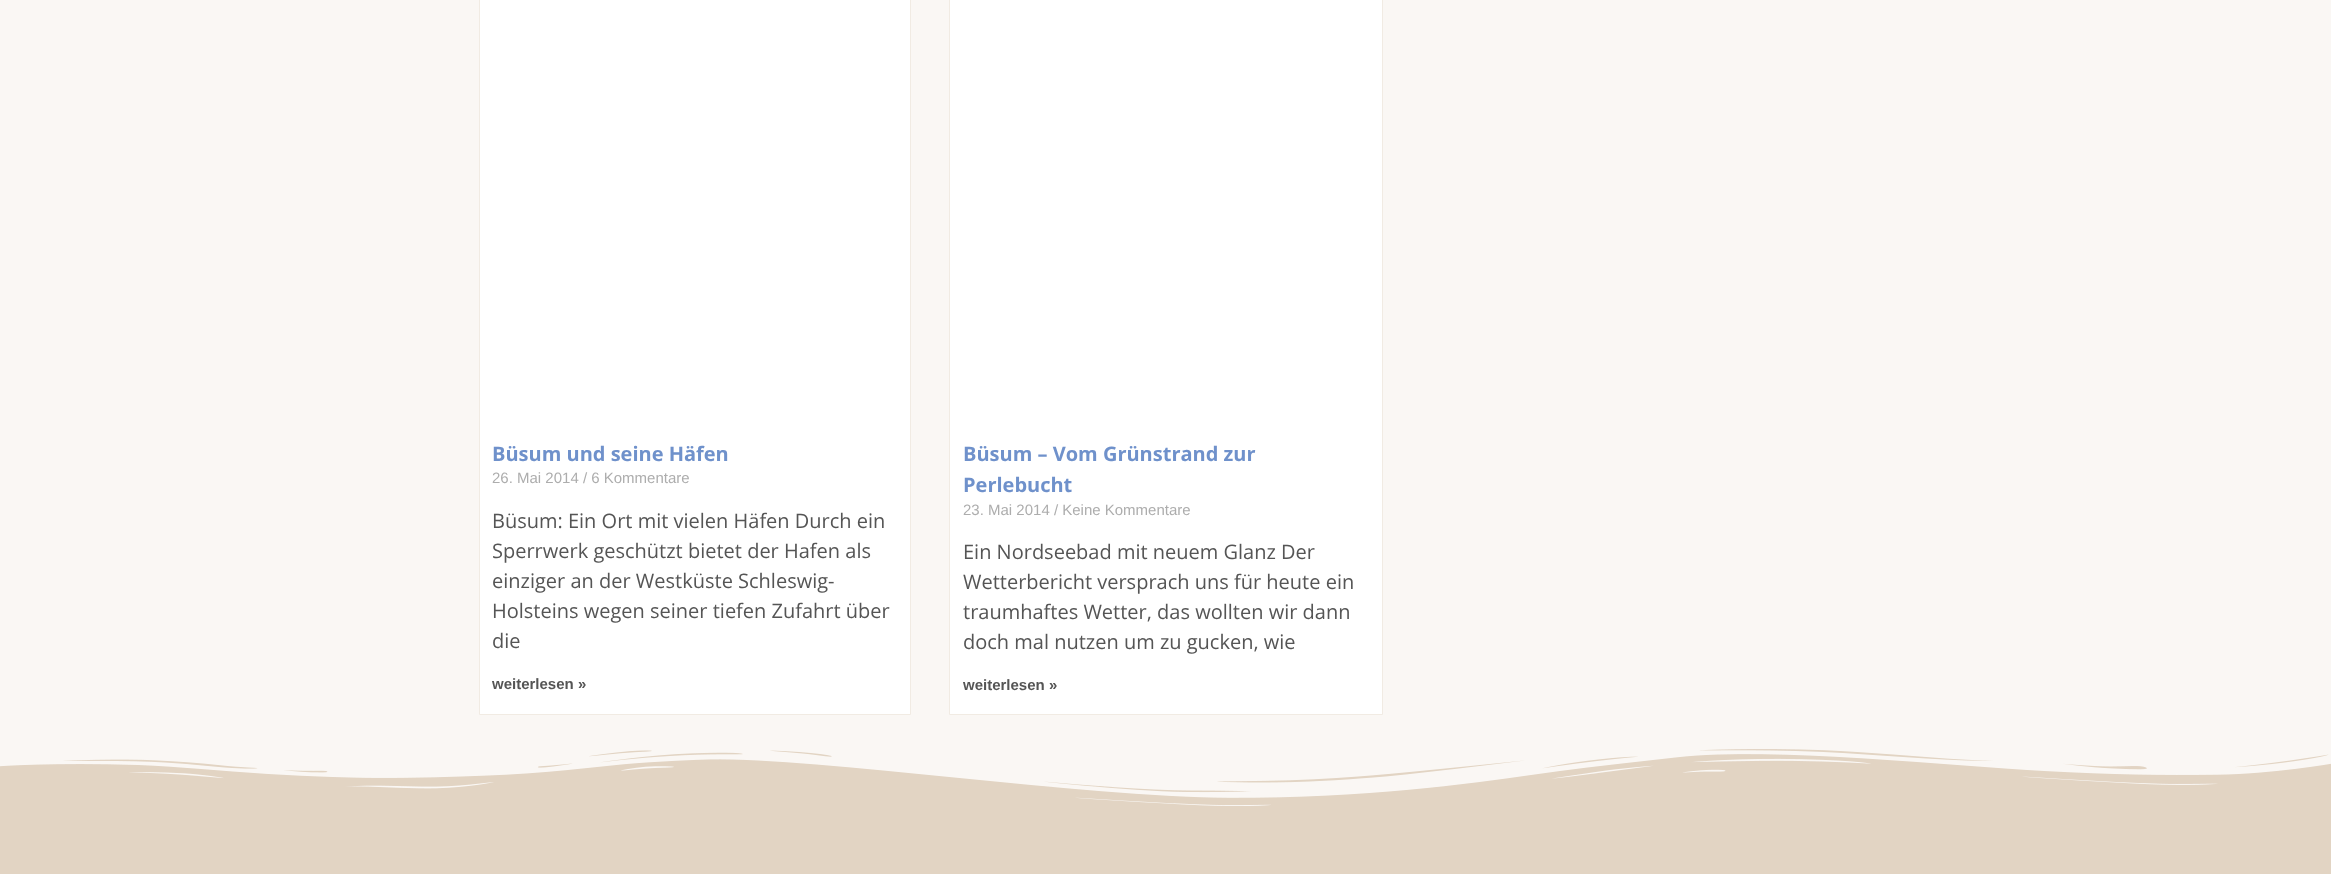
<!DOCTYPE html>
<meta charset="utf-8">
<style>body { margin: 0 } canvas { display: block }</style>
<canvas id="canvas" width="2331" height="874"></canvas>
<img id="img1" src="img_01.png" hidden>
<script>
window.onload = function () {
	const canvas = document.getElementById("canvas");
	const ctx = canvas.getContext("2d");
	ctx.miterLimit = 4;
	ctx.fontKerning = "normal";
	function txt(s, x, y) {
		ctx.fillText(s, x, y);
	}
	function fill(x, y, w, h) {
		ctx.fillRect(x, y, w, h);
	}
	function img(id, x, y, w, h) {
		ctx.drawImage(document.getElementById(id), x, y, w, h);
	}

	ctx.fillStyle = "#FAF7F4";
	fill(0, 0, 2331, 874);
	ctx.fillStyle = "#FFFFFF";
	ctx.beginPath();
	ctx.rect(479.5, -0.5, 431, 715);
	ctx.fill();
	ctx.strokeStyle = "#F1EBE3";
	ctx.stroke();
	ctx.beginPath();
	ctx.rect(949.5, -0.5, 433, 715);
	ctx.fill();
	ctx.stroke();
	ctx.fillStyle = "#E2D4C3";
	ctx.beginPath();
	ctx.moveTo(1, 741);
	ctx.lineTo(2331, 741);
	ctx.lineTo(2331, 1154);
	ctx.lineTo(0, 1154);
	ctx.lineTo(0, 741);
	ctx.closePath();
	ctx.fill();
	img("img1", 0, 740, 2331, 66);
	ctx.font = "bold 20px Open Sans";
	ctx.fillStyle = "#6F91CB";
	txt("Büsum und seine Häfen", 492, 461);
	ctx.font = "15px Liberation Sans";
	ctx.fillStyle = "#ADADAD";
	txt("26. Mai 2014 / 6 Kommentare", 492, 483);
	ctx.font = "20px Open Sans";
	ctx.fillStyle = "#555555";
	txt("Büsum: Ein Ort mit vielen Häfen Durch ein", 492, 528);
	txt("Sperrwerk geschützt bietet der Hafen als", 492, 558);
	txt("einziger an der Westküste Schleswig-", 492, 588);
	txt("Holsteins wegen seiner tiefen Zufahrt über", 492, 618);
	txt("die", 492, 648);
	ctx.font = "bold 15px Liberation Sans";
	txt("weiterlesen »", 492, 689);
	ctx.font = "bold 20px Open Sans";
	ctx.fillStyle = "#6F91CB";
	txt("Büsum – Vom Grünstrand zur", 963, 461);
	txt("Perlebucht", 963, 492);
	ctx.font = "15px Liberation Sans";
	ctx.fillStyle = "#ADADAD";
	txt("23. Mai 2014 / Keine Kommentare", 963, 515);
	ctx.font = "20px Open Sans";
	ctx.fillStyle = "#555555";
	txt("Ein Nordseebad mit neuem Glanz Der", 963, 559);
	txt("Wetterbericht versprach uns für heute ein", 963, 589);
	txt("traumhaftes Wetter, das wollten wir dann", 963, 619);
	txt("doch mal nutzen um zu gucken, wie", 963, 649);
	ctx.font = "bold 15px Liberation Sans";
	txt("weiterlesen »", 963, 690);
};
</script>
